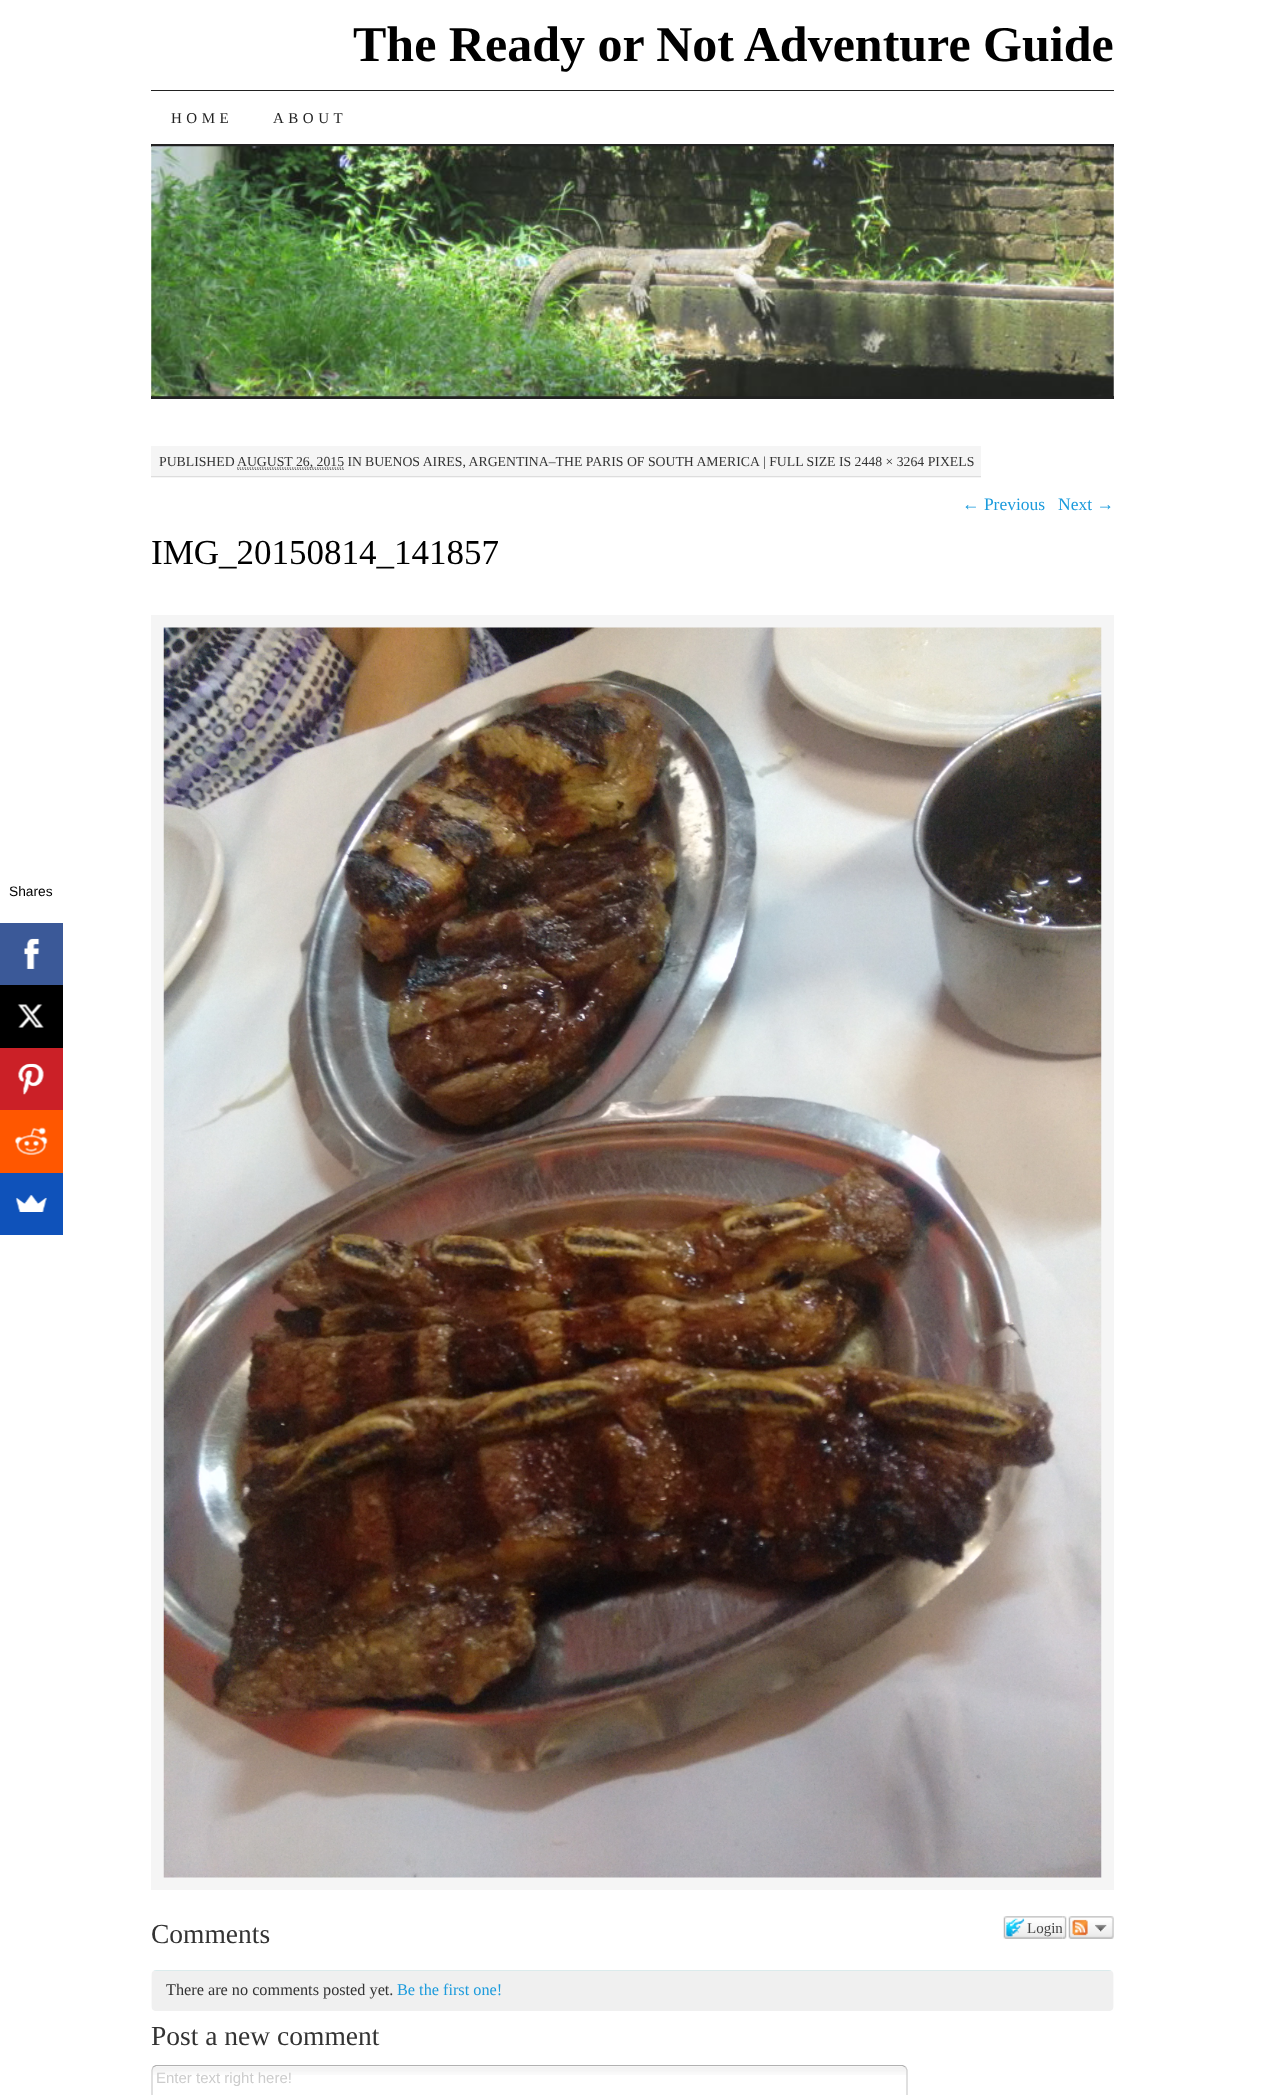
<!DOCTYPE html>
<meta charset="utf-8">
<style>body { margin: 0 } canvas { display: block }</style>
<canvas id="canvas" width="1265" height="2095"></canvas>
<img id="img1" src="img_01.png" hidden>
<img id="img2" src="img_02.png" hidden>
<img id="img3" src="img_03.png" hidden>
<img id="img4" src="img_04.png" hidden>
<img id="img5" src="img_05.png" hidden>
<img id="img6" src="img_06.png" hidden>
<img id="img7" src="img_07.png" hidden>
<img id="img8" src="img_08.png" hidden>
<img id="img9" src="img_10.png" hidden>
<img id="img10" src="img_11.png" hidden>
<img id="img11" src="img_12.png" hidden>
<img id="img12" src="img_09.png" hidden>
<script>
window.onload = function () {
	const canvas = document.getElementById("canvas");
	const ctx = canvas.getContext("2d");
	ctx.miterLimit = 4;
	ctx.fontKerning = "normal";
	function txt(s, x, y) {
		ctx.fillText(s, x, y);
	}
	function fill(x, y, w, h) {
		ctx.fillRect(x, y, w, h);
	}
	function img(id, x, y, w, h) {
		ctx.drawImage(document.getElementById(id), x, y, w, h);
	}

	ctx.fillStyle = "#FFFFFF";
	fill(0, 0, 1265, 2095);
	ctx.fillStyle = "#3B5998";
	fill(0, 923, 63, 62);
	img("img1", 24, 938, 16, 31);
	ctx.fillStyle = "#000000";
	fill(0, 985, 63, 63);
	img("img2", 17, 1004, 27, 24);
	ctx.fillStyle = "#CB2027";
	fill(0, 1048, 63, 62);
	img("img3", 18, 1063, 26, 32);
	ctx.fillStyle = "#FF5700";
	fill(0, 1110, 63, 63);
	img("img4", 15, 1127, 33, 28);
	ctx.fillStyle = "#0F52BA";
	fill(0, 1173, 63, 62);
	img("img5", 15, 1195, 32, 17);
	ctx.fillStyle = "#222222";
	fill(151, 90, 963, 1);
	fill(151, 144, 963, 3);
	fill(151, 396, 963, 3);
	img("img6", 151, 146, 963, 251);
	ctx.fillStyle = "#F5F5F5";
	fill(151, 446, 830, 32);
	ctx.fillStyle = "#DDDDDD";
	fill(151, 476, 830, 1);
	ctx.beginPath();
	ctx.moveTo(237.5, 469.5);
	ctx.lineTo(344, 469.5);
	ctx.strokeStyle = "#666666";
	ctx.lineWidth = 1.2;
	ctx.setLineDash([1.25, 1.25]);
	ctx.stroke();
	ctx.beginPath();
	ctx.moveTo(237, 468);
	ctx.lineTo(344, 468);
	ctx.strokeStyle = "#333333";
	ctx.stroke();
	ctx.fillStyle = "#F5F5F5";
	fill(151, 615, 963, 1275);
	img("img7", 163, 627, 939, 1251);
	img("img8", 1003, 1916, 60, 23);
	img("img9", 1068, 1916, 46, 23);
	img("img10", 151, 1970, 963, 41);
	img("img11", 152, 2066, 755, 9);
	ctx.save();
	ctx.beginPath();
	ctx.rect(151, 2065, 963, 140);
	ctx.clip();
	ctx.beginPath();
	ctx.moveTo(153, 2067);
	ctx.lineTo(156, 2065.5);
	ctx.lineTo(902.5, 2065.5);
	ctx.lineTo(905.5, 2067);
	ctx.strokeStyle = "#B0B0B0";
	ctx.setLineDash([]);
	ctx.stroke();
	ctx.restore();
	ctx.beginPath();
	ctx.moveTo(905.5, 2067);
	ctx.lineTo(907, 2070);
	ctx.lineTo(907, 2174);
	ctx.bezierCurveTo(907, 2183, 910.5, 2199.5, 902.5, 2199.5);
	ctx.lineTo(156, 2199.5);
	ctx.bezierCurveTo(148.5, 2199.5, 152, 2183, 152, 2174);
	ctx.lineTo(152, 2070);
	ctx.lineTo(153, 2067);
	ctx.strokeStyle = "#CCCCCC";
	ctx.setLineDash([]);
	ctx.stroke();
	ctx.font = "13.75px Liberation Sans";
	ctx.fillStyle = "#000000";
	txt("Shares", 9, 896);
	ctx.font = "bold 50px Liberation Serif";
	txt("The Ready or Not Adventure Guide", 353, 61);
	ctx.letterSpacing = "4.5px";
	ctx.font = "15px Liberation Serif";
	ctx.fillStyle = "#222222";
	txt("HOME", 171, 123);
	txt("ABOUT", 273, 123);
	ctx.letterSpacing = "0px";
	ctx.font = "13.75px Liberation Serif";
	ctx.fillStyle = "#333333";
	txt("PUBLISHED", 159, 466);
	txt("AUGUST 26, 2015 IN", 237, 466);
	txt("BUENOS AIRES, ARGENTINA–THE PARIS OF SOUTH AMERICA", 365, 466);
	txt("| FULL SIZE IS 2448 × 3264 PIXELS", 763, 466);
	ctx.font = "17.5px Liberation Serif";
	ctx.fillStyle = "#1C9BDC";
	txt("← Previous", 962, 510);
	txt("Next →", 1058, 510);
	ctx.font = "35px Liberation Serif";
	ctx.fillStyle = "#000000";
	txt("IMG_20150814_141857", 151, 564);
	ctx.font = "27.5px Liberation Serif";
	ctx.fillStyle = "#333333";
	txt("Comments", 151, 1943);
	ctx.font = "15px Liberation Serif";
	ctx.fillStyle = "#444444";
	txt("Login", 1027, 1933);
	img("img12", 1062, 1916, 5, 23);
	ctx.font = "16.25px Liberation Serif";
	ctx.fillStyle = "#333333";
	txt("There are no comments posted yet.", 166, 1995);
	ctx.fillStyle = "#1C9BDC";
	txt("Be the first one!", 397, 1995);
	ctx.font = "27.5px Liberation Serif";
	ctx.fillStyle = "#333333";
	txt("Post a new comment", 151, 2045);
	ctx.font = "15px Liberation Sans";
	ctx.fillStyle = "#CCCCCC";
	txt("Enter text right here!", 156, 2083);
};
</script>
